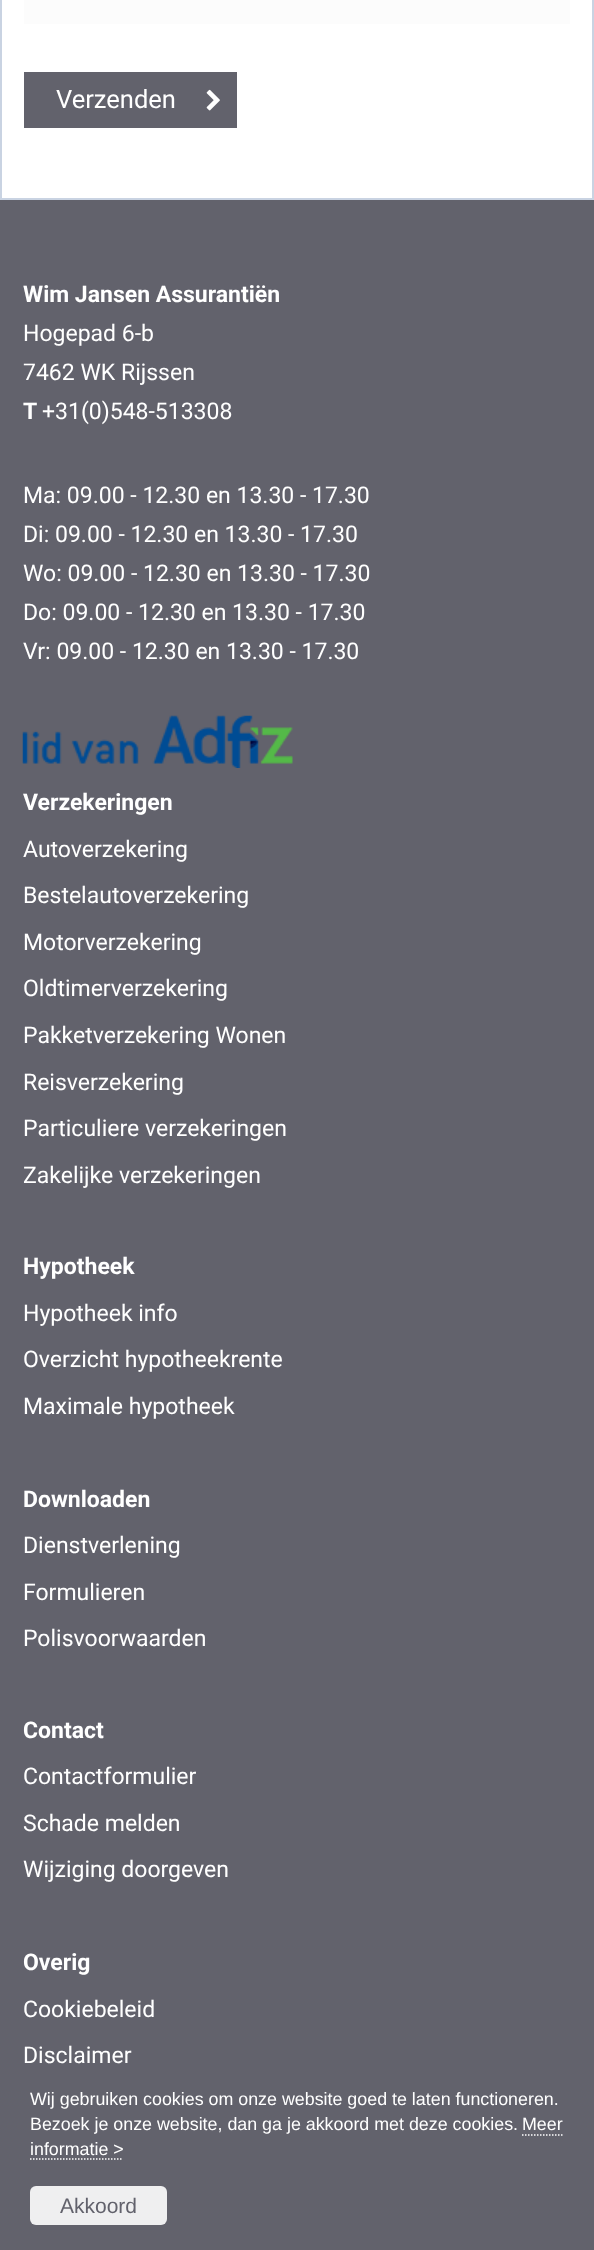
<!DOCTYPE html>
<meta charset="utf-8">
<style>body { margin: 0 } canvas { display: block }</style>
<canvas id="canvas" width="594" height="2250"></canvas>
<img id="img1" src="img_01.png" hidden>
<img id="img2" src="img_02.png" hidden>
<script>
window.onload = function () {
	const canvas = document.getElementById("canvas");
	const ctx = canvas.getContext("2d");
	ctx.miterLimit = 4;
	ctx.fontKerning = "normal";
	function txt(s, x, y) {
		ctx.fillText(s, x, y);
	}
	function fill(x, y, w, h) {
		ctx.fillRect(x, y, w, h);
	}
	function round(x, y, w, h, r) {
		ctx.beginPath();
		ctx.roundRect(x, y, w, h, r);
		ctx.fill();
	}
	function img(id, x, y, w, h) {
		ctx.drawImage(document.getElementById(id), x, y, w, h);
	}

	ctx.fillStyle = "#FFFFFF";
	fill(0, 0, 594, 2250);
	ctx.strokeStyle = "#C9D3E2";
	ctx.lineWidth = 2;
	ctx.strokeRect(1, -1, 592, 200);
	ctx.fillStyle = "#FCFCFC";
	fill(24, 0, 546, 24);
	ctx.fillStyle = "#62626C";
	fill(24, 72, 213, 56);
	img("img1", 206, 89, 14, 22);
	fill(0, 200, 594, 2050);
	img("img2", 22, 715, 271, 53);
	ctx.beginPath();
	ctx.moveTo(522, 2135);
	ctx.lineTo(562.5, 2135);
	ctx.strokeStyle = "#FFFFFF";
	ctx.lineWidth = 1.5;
	ctx.setLineDash([1.5, 1.5]);
	ctx.stroke();
	ctx.beginPath();
	ctx.moveTo(30, 2159);
	ctx.lineTo(123, 2159);
	ctx.stroke();
	ctx.fillStyle = "#EFEFF0";
	round(30, 2186, 137, 39, 6);
	ctx.font = "25.5px Roboto";
	ctx.fillStyle = "#FFFFFF";
	txt("Verzenden", 56, 108);
	ctx.font = "bold 23px Roboto";
	txt("Wim Jansen Assurantiën", 23, 302);
	ctx.font = "23px Roboto";
	txt("Hogepad 6-b", 23, 341);
	txt("7462 WK Rijssen", 23, 380);
	ctx.font = "bold 23px Roboto";
	txt("T", 23, 419);
	ctx.font = "23px Roboto";
	txt("+31(0)548-513308", 42, 419);
	txt("Ma: 09.00 - 12.30 en 13.30 - 17.30", 23, 503);
	txt("Di: 09.00 - 12.30 en 13.30 - 17.30", 23, 542);
	txt("Wo: 09.00 - 12.30 en 13.30 - 17.30", 23, 581);
	txt("Do: 09.00 - 12.30 en 13.30 - 17.30", 23, 620);
	txt("Vr: 09.00 - 12.30 en 13.30 - 17.30", 23, 659);
	ctx.font = "bold 23px Roboto";
	txt("Verzekeringen", 23, 810);
	ctx.font = "23px Roboto";
	txt("Autoverzekering", 23, 857);
	txt("Bestelautoverzekering", 23, 903);
	txt("Motorverzekering", 23, 950);
	txt("Oldtimerverzekering", 23, 996);
	txt("Pakketverzekering Wonen", 23, 1043);
	txt("Reisverzekering", 23, 1090);
	txt("Particuliere verzekeringen", 23, 1136);
	txt("Zakelijke verzekeringen", 23, 1183);
	ctx.font = "bold 23px Roboto";
	txt("Hypotheek", 23, 1274);
	ctx.font = "23px Roboto";
	txt("Hypotheek info", 23, 1321);
	txt("Overzicht hypotheekrente", 23, 1367);
	txt("Maximale hypotheek", 23, 1414);
	ctx.font = "bold 23px Roboto";
	txt("Downloaden", 23, 1507);
	ctx.font = "23px Roboto";
	txt("Dienstverlening", 23, 1553);
	txt("Formulieren", 23, 1600);
	txt("Polisvoorwaarden", 23, 1646);
	ctx.font = "bold 23px Roboto";
	txt("Contact", 23, 1738);
	ctx.font = "23px Roboto";
	txt("Contactformulier", 23, 1784);
	txt("Schade melden", 23, 1831);
	txt("Wijziging doorgeven", 23, 1877);
	ctx.font = "bold 23px Roboto";
	txt("Overig", 23, 1970);
	ctx.font = "23px Roboto";
	txt("Cookiebeleid", 23, 2017);
	txt("Disclaimer", 23, 2063);
	ctx.font = "17.85px Liberation Sans";
	txt("Wij gebruiken cookies om onze website goed te laten functioneren.", 30, 2105);
	txt("Bezoek je onze website, dan ga je akkoord met deze cookies.", 30, 2130);
	txt("Meer", 522, 2130);
	txt("informatie >", 30, 2155);
	ctx.font = "21px Liberation Sans";
	ctx.fillStyle = "#62626C";
	txt("Akkoord", 60, 2213);
};
</script>
